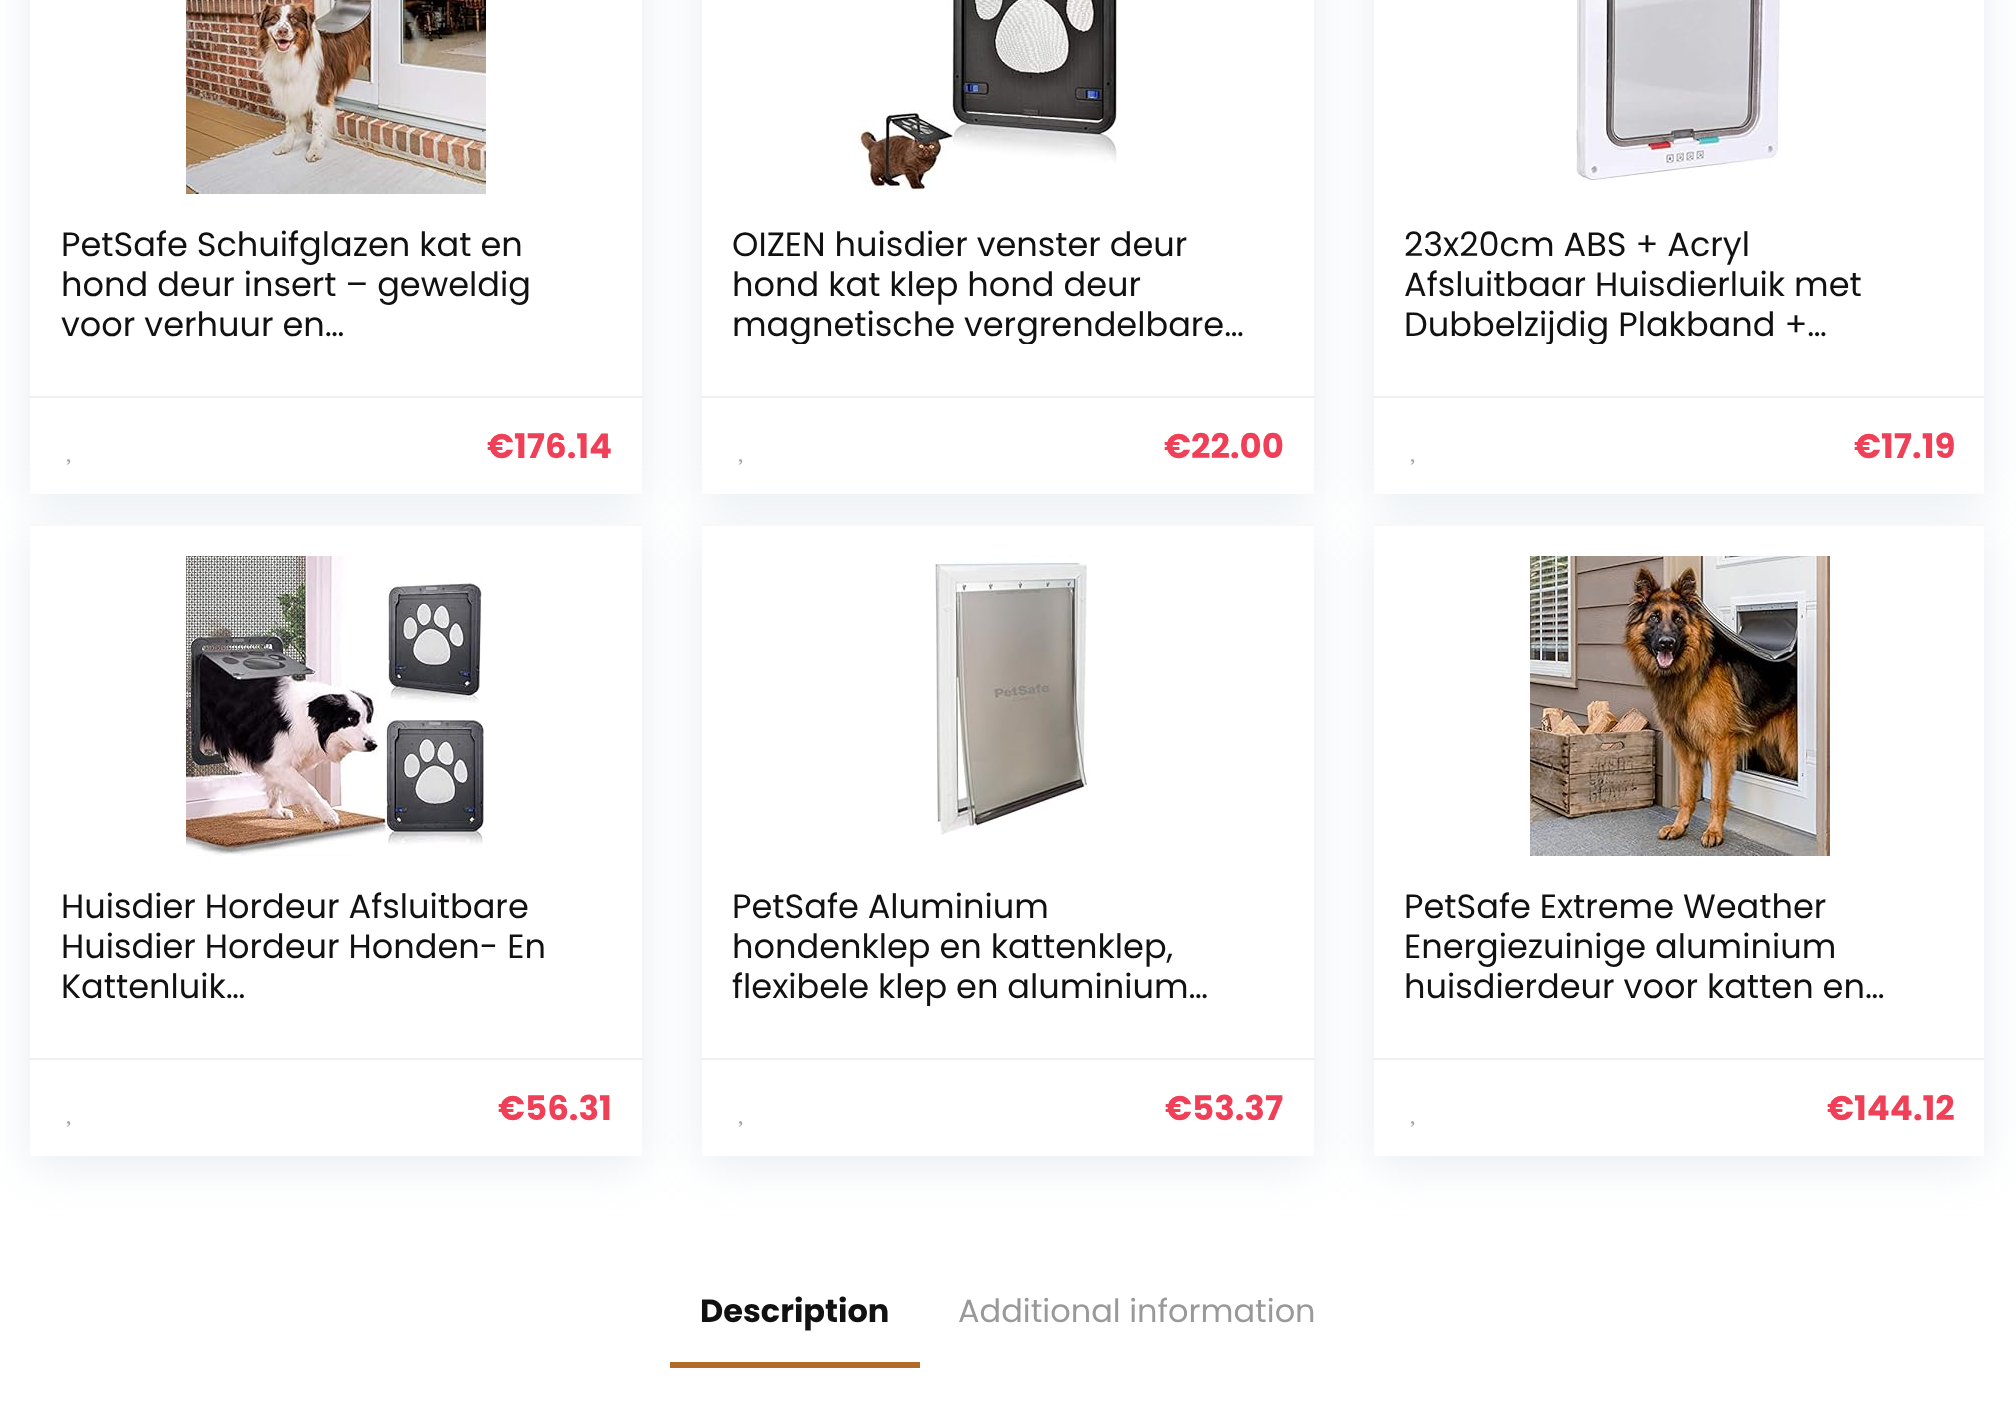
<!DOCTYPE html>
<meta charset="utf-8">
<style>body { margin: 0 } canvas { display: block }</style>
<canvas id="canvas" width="2016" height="1425"></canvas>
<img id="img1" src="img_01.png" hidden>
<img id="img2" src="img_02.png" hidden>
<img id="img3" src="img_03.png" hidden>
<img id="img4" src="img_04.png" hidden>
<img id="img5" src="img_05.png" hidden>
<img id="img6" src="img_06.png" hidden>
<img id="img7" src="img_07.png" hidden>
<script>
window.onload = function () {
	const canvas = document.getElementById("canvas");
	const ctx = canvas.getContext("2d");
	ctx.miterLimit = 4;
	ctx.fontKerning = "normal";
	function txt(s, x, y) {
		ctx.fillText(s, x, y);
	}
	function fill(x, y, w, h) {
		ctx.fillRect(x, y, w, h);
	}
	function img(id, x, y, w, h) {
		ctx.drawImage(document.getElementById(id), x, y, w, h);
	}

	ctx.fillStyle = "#FFFFFF";
	fill(0, 0, 2016, 1425);
	ctx.save();
	ctx.beginPath();
	ctx.moveTo(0, 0);
	ctx.lineTo(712, 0);
	ctx.lineTo(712, 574);
	ctx.lineTo(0, 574);
	ctx.closePath();
	ctx.moveTo(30, -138);
	ctx.lineTo(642, -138);
	ctx.lineTo(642, 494);
	ctx.lineTo(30, 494);
	ctx.closePath();
	ctx.clip("evenodd");
	ctx.fillStyle = "rgba(188, 207, 219, 0.35)";
	ctx.filter = "blur(23px)";
	ctx.beginPath();
	ctx.rect(30, -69, 612, 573);
	ctx.fill();
	ctx.filter = "none";
	ctx.restore();
	img("img1", 186, 0, 300, 194);
	ctx.fillStyle = "#F0F0F0";
	fill(30, 396, 612, 2);
	ctx.fillStyle = "rgba(188, 207, 219, 0.35)";
	ctx.filter = "blur(23px)";
	ctx.beginPath();
	ctx.rect(30, 534, 612, 632);
	ctx.fill();
	ctx.filter = "none";
	img("img2", 66, 459, 5, 6);
	ctx.save();
	ctx.beginPath();
	ctx.moveTo(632, 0);
	ctx.lineTo(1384, 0);
	ctx.lineTo(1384, 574);
	ctx.lineTo(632, 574);
	ctx.closePath();
	ctx.moveTo(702, -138);
	ctx.lineTo(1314, -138);
	ctx.lineTo(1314, 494);
	ctx.lineTo(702, 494);
	ctx.closePath();
	ctx.clip("evenodd");
	ctx.filter = "blur(23px)";
	ctx.beginPath();
	ctx.rect(702, -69, 612, 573);
	ctx.fill();
	ctx.filter = "none";
	ctx.restore();
	img("img3", 858, 0, 260, 191);
	ctx.fillStyle = "#F0F0F0";
	fill(702, 396, 612, 2);
	ctx.fillStyle = "#FFFFFF";
	fill(30, 526, 612, 630);
	ctx.fillStyle = "#F8F8F8";
	fill(30, 524, 612, 2);
	ctx.fillStyle = "#F0F0F0";
	fill(30, 1058, 612, 2);
	ctx.fillStyle = "rgba(188, 207, 219, 0.35)";
	ctx.filter = "blur(23px)";
	ctx.beginPath();
	ctx.rect(702, 534, 612, 632);
	ctx.fill();
	ctx.filter = "none";
	img("img2", 738, 459, 5, 6);
	ctx.save();
	ctx.beginPath();
	ctx.moveTo(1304, 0);
	ctx.lineTo(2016, 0);
	ctx.lineTo(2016, 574);
	ctx.lineTo(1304, 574);
	ctx.closePath();
	ctx.moveTo(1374, -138);
	ctx.lineTo(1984, -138);
	ctx.lineTo(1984, 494);
	ctx.lineTo(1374, 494);
	ctx.closePath();
	ctx.clip("evenodd");
	ctx.filter = "blur(23px)";
	ctx.beginPath();
	ctx.rect(1374, -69, 610, 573);
	ctx.fill();
	ctx.filter = "none";
	ctx.restore();
	img("img4", 1576, 0, 204, 182);
	ctx.fillStyle = "#F0F0F0";
	fill(1374, 396, 610, 2);
	ctx.fillStyle = "#FFFFFF";
	fill(702, 526, 612, 630);
	ctx.fillStyle = "#F8F8F8";
	fill(702, 524, 612, 2);
	ctx.fillStyle = "#F0F0F0";
	fill(702, 1058, 612, 2);
	ctx.fillStyle = "rgba(188, 207, 219, 0.35)";
	ctx.filter = "blur(23px)";
	ctx.beginPath();
	ctx.rect(1374, 534, 610, 632);
	ctx.fill();
	ctx.filter = "none";
	img("img2", 1410, 459, 5, 6);
	img("img5", 186, 556, 299, 300);
	img("img2", 66, 1121, 5, 6);
	img("img6", 935, 556, 155, 279);
	img("img2", 738, 1121, 5, 6);
	ctx.fillStyle = "#FFFFFF";
	fill(1374, 526, 610, 630);
	ctx.fillStyle = "#F8F8F8";
	fill(1374, 524, 610, 2);
	img("img7", 1530, 556, 300, 300);
	ctx.fillStyle = "#F0F0F0";
	fill(1374, 1058, 610, 2);
	img("img2", 1410, 1121, 5, 6);
	ctx.fillStyle = "#B26A28";
	fill(670, 1362, 250, 6);
	ctx.font = "33.6px Poppins";
	ctx.fillStyle = "#111111";
	txt("PetSafe Schuifglazen kat en", 61, 256);
	txt("hond deur insert – geweldig", 61, 296);
	txt("voor verhuur en…", 61, 336);
	ctx.font = "bold 34px Poppins";
	ctx.fillStyle = "#F04057";
	txt("€176.14", 487, 458);
	ctx.font = "33.6px Poppins";
	ctx.fillStyle = "#111111";
	txt("OIZEN huisdier venster deur", 732, 256);
	txt("hond kat klep hond deur", 732, 296);
	ctx.save();
	ctx.beginPath();
	ctx.rect(732, 224, 522, 120);
	ctx.clip();
	txt("magnetische vergrendelbare…", 732, 336);
	ctx.restore();
	ctx.font = "bold 34px Poppins";
	ctx.fillStyle = "#F04057";
	txt("€22.00", 1164, 458);
	ctx.font = "33.6px Poppins";
	ctx.fillStyle = "#111111";
	txt("23x20cm ABS + Acryl", 1404, 256);
	txt("Afsluitbaar Huisdierluik met", 1404, 296);
	ctx.save();
	ctx.beginPath();
	ctx.rect(1404, 224, 520, 120);
	ctx.clip();
	txt("Dubbelzijdig Plakband +…", 1404, 336);
	ctx.restore();
	ctx.font = "bold 34px Poppins";
	ctx.fillStyle = "#F04057";
	txt("€17.19", 1854, 458);
	ctx.font = "33.6px Poppins";
	ctx.fillStyle = "#111111";
	txt("Huisdier Hordeur Afsluitbare", 61, 918);
	txt("Huisdier Hordeur Honden- En", 61, 958);
	txt("Kattenluik…", 61, 998);
	ctx.font = "bold 34px Poppins";
	ctx.fillStyle = "#F04057";
	txt("€56.31", 498, 1120);
	ctx.font = "33.6px Poppins";
	ctx.fillStyle = "#111111";
	txt("PetSafe Aluminium", 732, 918);
	txt("hondenklep en kattenklep,", 732, 958);
	ctx.save();
	ctx.beginPath();
	ctx.rect(732, 886, 522, 120);
	ctx.clip();
	txt("flexibele klep en aluminium…", 732, 998);
	ctx.restore();
	ctx.font = "bold 34px Poppins";
	ctx.fillStyle = "#F04057";
	txt("€53.37", 1165, 1120);
	ctx.font = "33.6px Poppins";
	ctx.fillStyle = "#111111";
	txt("PetSafe Extreme Weather", 1404, 918);
	txt("Energiezuinige aluminium", 1404, 958);
	txt("huisdierdeur voor katten en…", 1404, 998);
	ctx.font = "bold 34px Poppins";
	ctx.fillStyle = "#F04057";
	txt("€144.12", 1827, 1120);
	ctx.font = "bold 32px Poppins";
	ctx.fillStyle = "#111111";
	txt("Description", 700, 1322);
	ctx.font = "32px Poppins";
	ctx.fillStyle = "#999999";
	txt("Additional information", 958, 1322);
};
</script>
